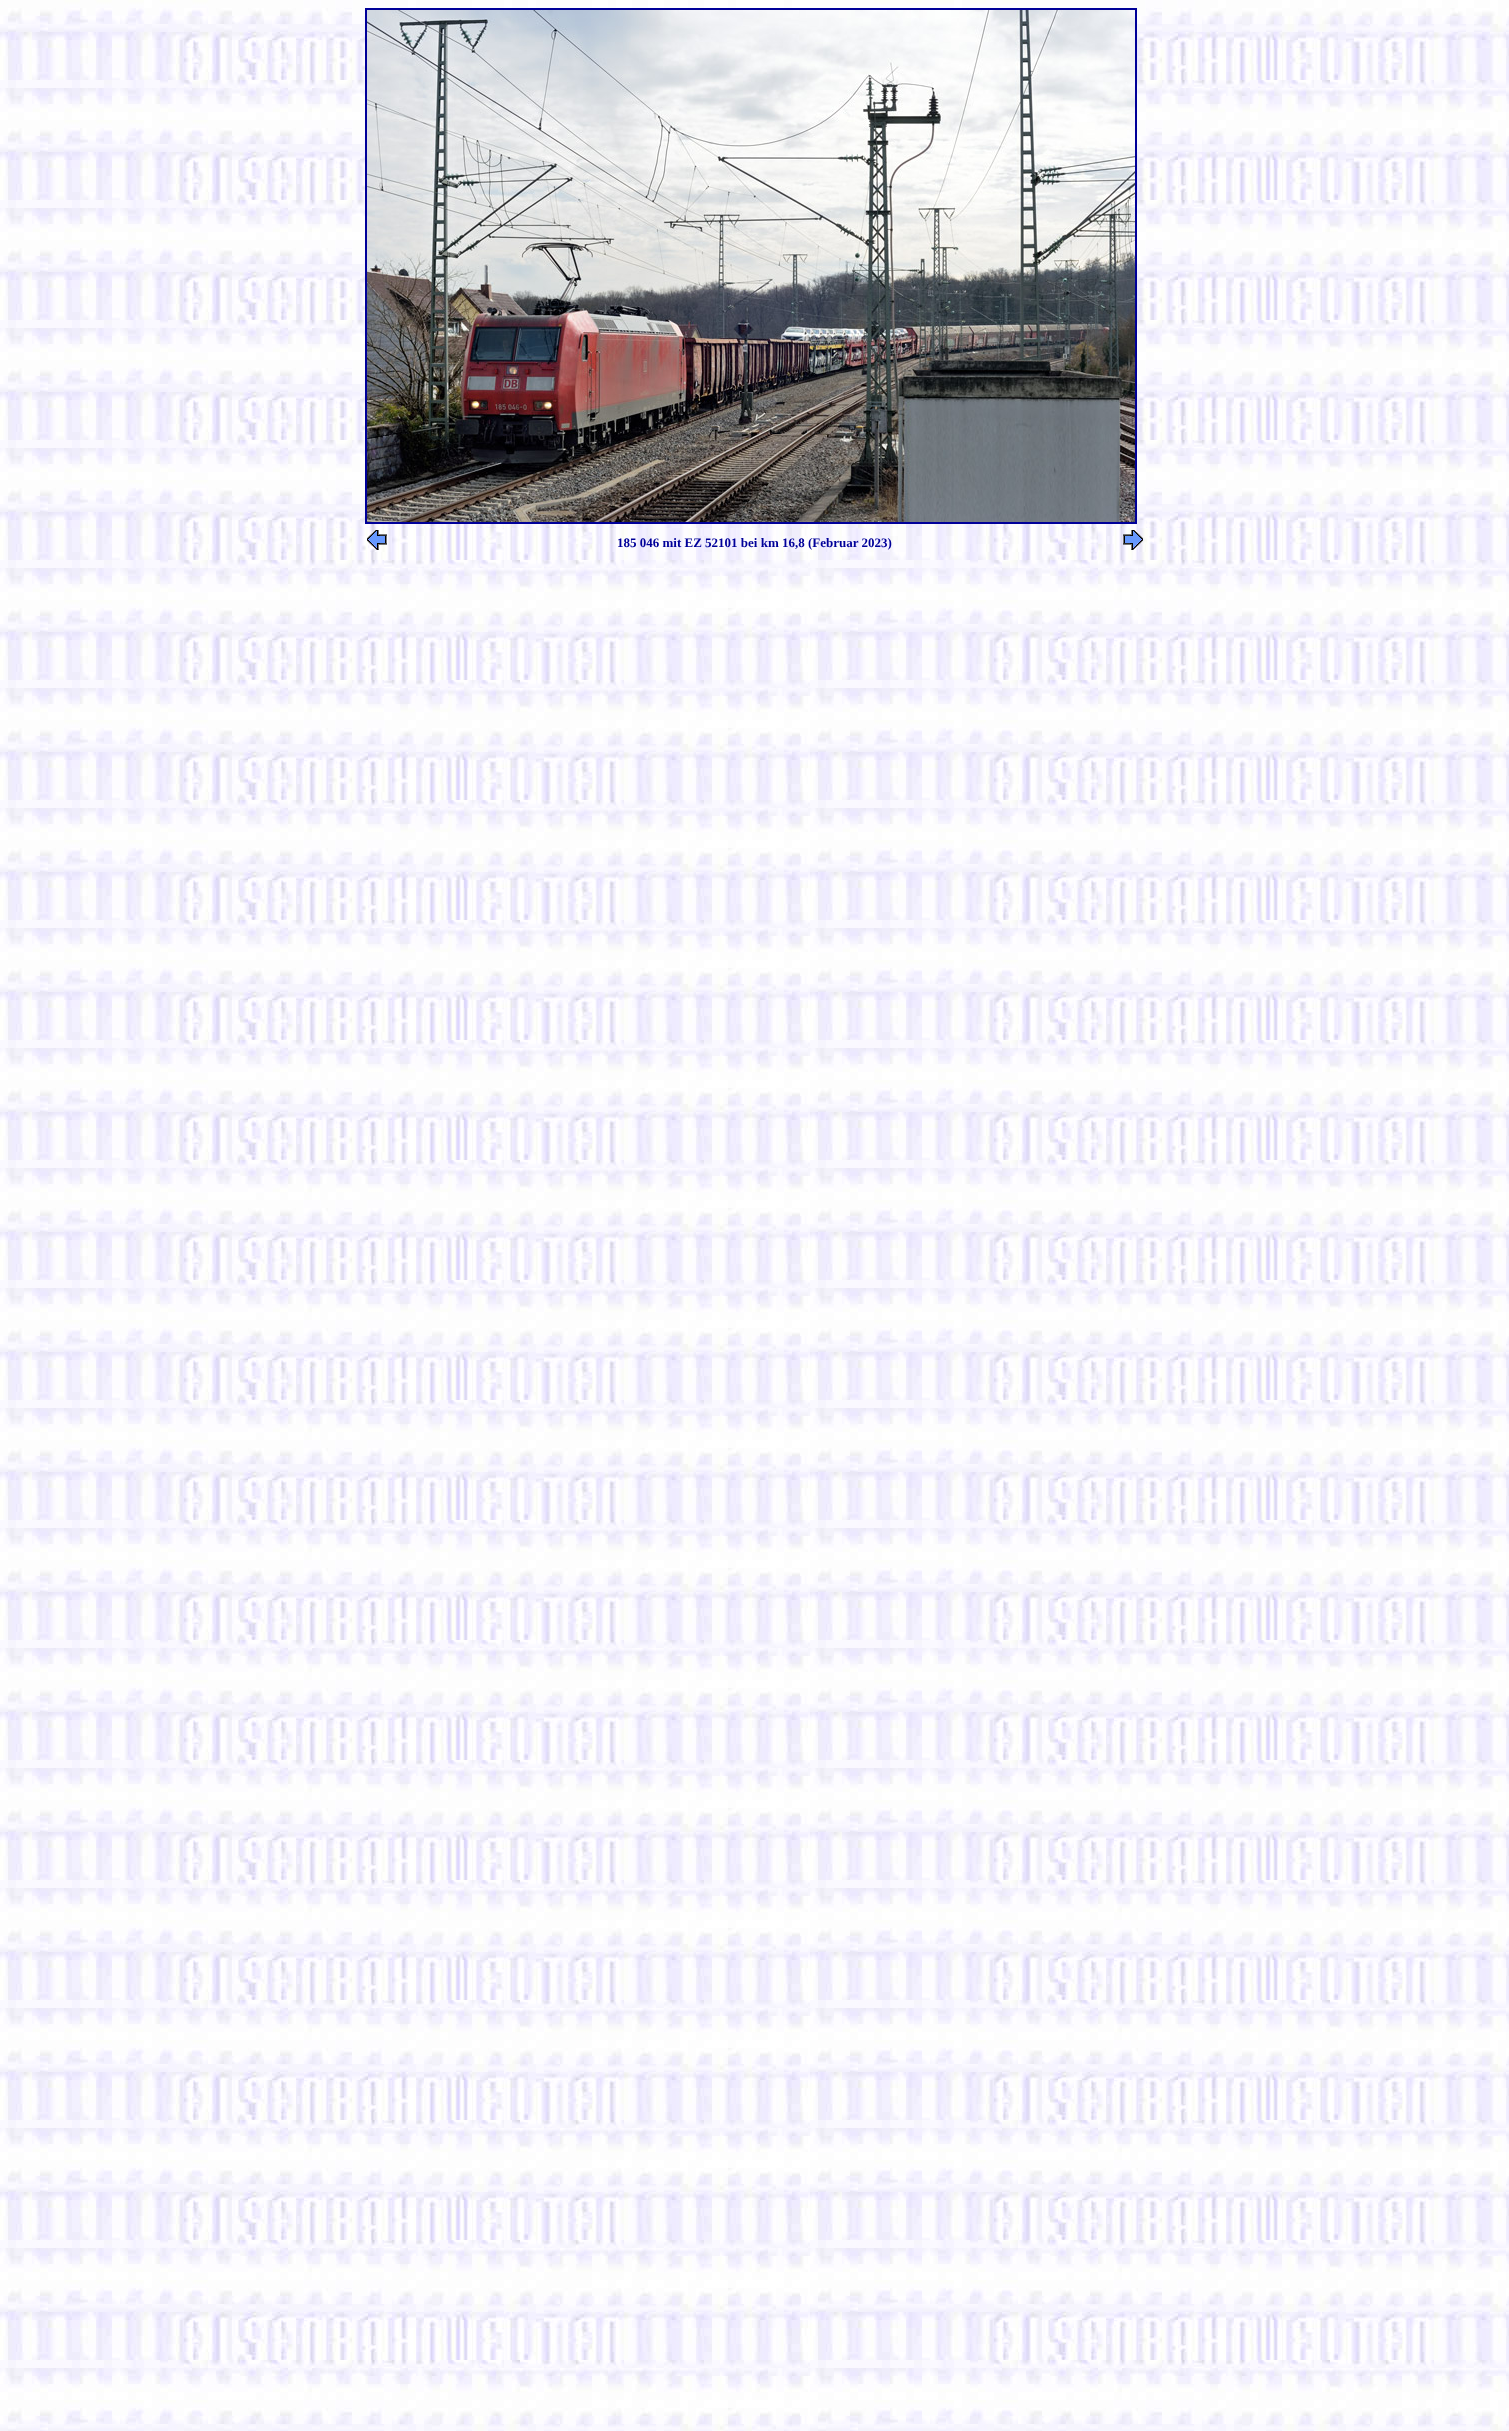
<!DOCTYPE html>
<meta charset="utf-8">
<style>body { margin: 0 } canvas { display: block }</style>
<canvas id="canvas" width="1509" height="2431"></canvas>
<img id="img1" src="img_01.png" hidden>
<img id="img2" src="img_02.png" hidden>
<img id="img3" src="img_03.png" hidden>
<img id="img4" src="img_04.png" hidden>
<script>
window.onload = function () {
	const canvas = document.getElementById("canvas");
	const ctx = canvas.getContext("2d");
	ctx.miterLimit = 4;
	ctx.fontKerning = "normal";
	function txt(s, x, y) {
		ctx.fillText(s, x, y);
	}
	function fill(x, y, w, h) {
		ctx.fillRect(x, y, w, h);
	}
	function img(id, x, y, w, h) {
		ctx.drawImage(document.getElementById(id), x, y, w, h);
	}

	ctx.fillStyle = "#FFFFFF";
	fill(0, 0, 1509, 2431);
	img("img1", 0, 0, 1509, 2431);
	ctx.strokeStyle = "#000099";
	ctx.lineWidth = 2;
	ctx.strokeRect(366, 9, 770, 514);
	img("img2", 367, 10, 768, 512);
	img("img3", 367, 530, 20, 20);
	img("img4", 1123, 530, 20, 20);
	ctx.font = "bold 13px Liberation Serif";
	ctx.fillStyle = "#000099";
	txt("185 046 mit EZ 52101 bei km 16,8 (Februar 2023)", 617, 547);
};
</script>
